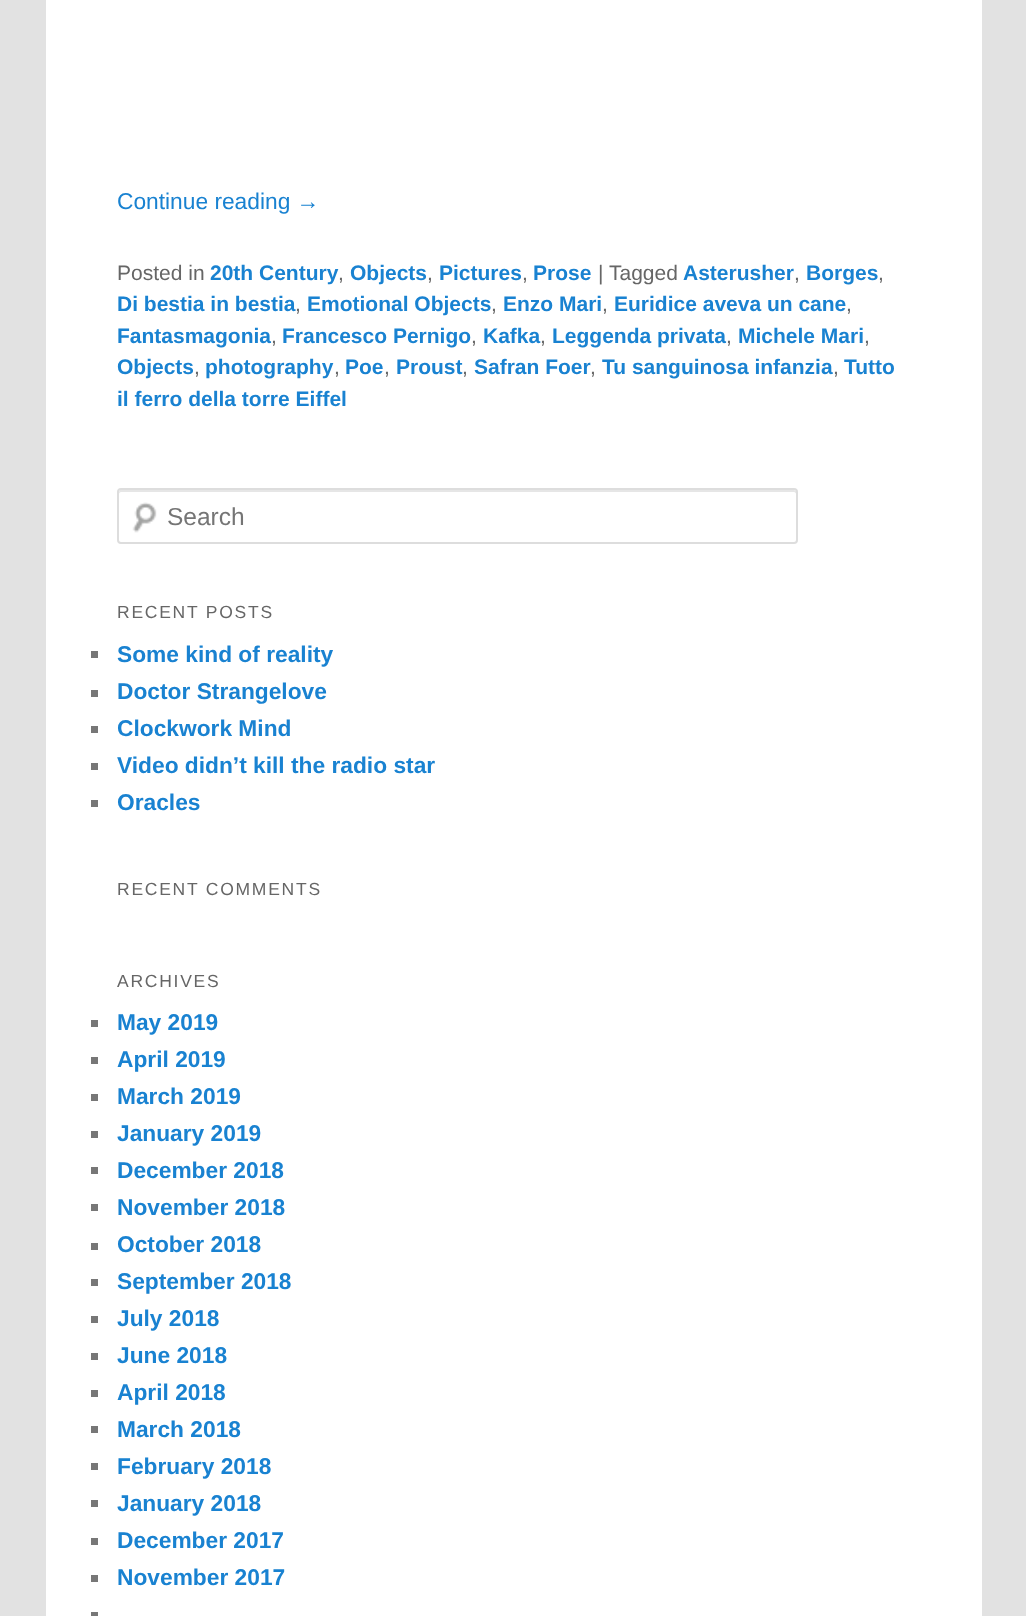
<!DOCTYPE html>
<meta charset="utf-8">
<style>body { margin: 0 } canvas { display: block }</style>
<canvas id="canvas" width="1026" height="1616"></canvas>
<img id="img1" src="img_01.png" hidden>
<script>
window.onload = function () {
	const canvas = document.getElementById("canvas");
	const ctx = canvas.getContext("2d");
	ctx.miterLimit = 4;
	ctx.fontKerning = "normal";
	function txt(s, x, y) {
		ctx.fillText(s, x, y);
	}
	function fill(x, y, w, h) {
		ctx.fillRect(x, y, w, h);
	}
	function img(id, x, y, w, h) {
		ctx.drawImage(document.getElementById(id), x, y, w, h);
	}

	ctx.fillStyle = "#E2E2E2";
	fill(0, 0, 1026, 1616);
	ctx.fillStyle = "#FFFFFF";
	fill(46, 0, 936, 1616);
	img("img1", 132, 502, 25, 31);
	ctx.fillStyle = "#E6E6E6";
	ctx.beginPath();
	ctx.moveTo(121, 492);
	ctx.lineTo(794, 492);
	ctx.bezierCurveTo(795, 492, 796, 493, 796, 494);
	ctx.lineTo(796, 491);
	ctx.lineTo(794, 490);
	ctx.lineTo(120, 490);
	ctx.bezierCurveTo(119, 491, 119, 493, 119, 494);
	ctx.bezierCurveTo(119, 493, 120, 492, 121, 492);
	ctx.closePath();
	ctx.fill();
	ctx.beginPath();
	ctx.roundRect(118, 489, 679, 54, 3);
	ctx.strokeStyle = "#DDDDDD";
	ctx.lineWidth = 2;
	ctx.stroke();
	ctx.fillStyle = "#777777";
	fill(91, 651, 7, 7);
	fill(91, 690, 7, 7);
	fill(91, 726, 7, 7);
	fill(91, 763, 7, 7);
	fill(91, 800, 7, 7);
	fill(91, 1020, 7, 7);
	fill(91, 1057, 7, 7);
	fill(91, 1094, 7, 7);
	fill(91, 1131, 7, 7);
	fill(91, 1167, 7, 7);
	fill(91, 1204, 7, 7);
	fill(91, 1243, 7, 7);
	fill(91, 1279, 7, 7);
	fill(91, 1316, 7, 7);
	fill(91, 1353, 7, 7);
	fill(91, 1390, 7, 7);
	fill(91, 1426, 7, 7);
	fill(91, 1463, 7, 7);
	fill(91, 1500, 7, 7);
	fill(91, 1538, 7, 7);
	fill(91, 1575, 7, 7);
	fill(91, 1612, 7, 4);
	ctx.font = "22.75px Liberation Sans";
	ctx.fillStyle = "#1982D1";
	txt("Continue reading →", 117, 209);
	ctx.font = "21px Liberation Sans";
	ctx.fillStyle = "#666666";
	txt("Posted in", 117, 280);
	ctx.font = "bold 21px Liberation Sans";
	ctx.fillStyle = "#1982D1";
	txt("20th Century", 210, 280);
	ctx.font = "21px Liberation Sans";
	ctx.fillStyle = "#666666";
	txt(",", 338, 280);
	ctx.font = "bold 21px Liberation Sans";
	ctx.fillStyle = "#1982D1";
	txt("Objects", 350, 280);
	ctx.font = "21px Liberation Sans";
	ctx.fillStyle = "#666666";
	txt(",", 427, 280);
	ctx.font = "bold 21px Liberation Sans";
	ctx.fillStyle = "#1982D1";
	txt("Pictures", 439, 280);
	ctx.font = "21px Liberation Sans";
	ctx.fillStyle = "#666666";
	txt(",", 522, 280);
	ctx.font = "bold 21px Liberation Sans";
	ctx.fillStyle = "#1982D1";
	txt("Prose", 533, 280);
	ctx.font = "21px Liberation Sans";
	ctx.fillStyle = "#666666";
	txt("|", 598, 280);
	txt("Tagged", 609, 280);
	ctx.font = "bold 21px Liberation Sans";
	ctx.fillStyle = "#1982D1";
	txt("Asterusher", 683, 280);
	ctx.font = "21px Liberation Sans";
	ctx.fillStyle = "#666666";
	txt(",", 794, 280);
	ctx.font = "bold 21px Liberation Sans";
	ctx.fillStyle = "#1982D1";
	txt("Borges", 806, 280);
	ctx.font = "21px Liberation Sans";
	ctx.fillStyle = "#666666";
	txt(",", 878, 280);
	ctx.font = "bold 21px Liberation Sans";
	ctx.fillStyle = "#1982D1";
	txt("Di bestia in bestia", 117, 311);
	ctx.font = "21px Liberation Sans";
	ctx.fillStyle = "#666666";
	txt(",", 295, 311);
	ctx.font = "bold 21px Liberation Sans";
	ctx.fillStyle = "#1982D1";
	txt("Emotional Objects", 307, 311);
	ctx.font = "21px Liberation Sans";
	ctx.fillStyle = "#666666";
	txt(",", 491, 311);
	ctx.font = "bold 21px Liberation Sans";
	ctx.fillStyle = "#1982D1";
	txt("Enzo Mari", 503, 311);
	ctx.font = "21px Liberation Sans";
	ctx.fillStyle = "#666666";
	txt(",", 602, 311);
	ctx.font = "bold 21px Liberation Sans";
	ctx.fillStyle = "#1982D1";
	txt("Euridice aveva un cane", 614, 311);
	ctx.font = "21px Liberation Sans";
	ctx.fillStyle = "#666666";
	txt(",", 846, 311);
	ctx.font = "bold 21px Liberation Sans";
	ctx.fillStyle = "#1982D1";
	txt("Fantasmagonia", 117, 343);
	ctx.font = "21px Liberation Sans";
	ctx.fillStyle = "#666666";
	txt(",", 271, 343);
	ctx.font = "bold 21px Liberation Sans";
	ctx.fillStyle = "#1982D1";
	txt("Francesco Pernigo", 282, 343);
	ctx.font = "21px Liberation Sans";
	ctx.fillStyle = "#666666";
	txt(",", 471, 343);
	ctx.font = "bold 21px Liberation Sans";
	ctx.fillStyle = "#1982D1";
	txt("Kafka", 483, 343);
	ctx.font = "21px Liberation Sans";
	ctx.fillStyle = "#666666";
	txt(",", 540, 343);
	ctx.font = "bold 21px Liberation Sans";
	ctx.fillStyle = "#1982D1";
	txt("Leggenda privata", 552, 343);
	ctx.font = "21px Liberation Sans";
	ctx.fillStyle = "#666666";
	txt(",", 726, 343);
	ctx.font = "bold 21px Liberation Sans";
	ctx.fillStyle = "#1982D1";
	txt("Michele Mari", 738, 343);
	ctx.font = "21px Liberation Sans";
	ctx.fillStyle = "#666666";
	txt(",", 864, 343);
	ctx.font = "bold 21px Liberation Sans";
	ctx.fillStyle = "#1982D1";
	txt("Objects", 117, 374);
	ctx.font = "21px Liberation Sans";
	ctx.fillStyle = "#666666";
	txt(",", 194, 374);
	ctx.font = "bold 21px Liberation Sans";
	ctx.fillStyle = "#1982D1";
	txt("photography", 205, 374);
	ctx.font = "21px Liberation Sans";
	ctx.fillStyle = "#666666";
	txt(",", 334, 374);
	ctx.font = "bold 21px Liberation Sans";
	ctx.fillStyle = "#1982D1";
	txt("Poe", 345, 374);
	ctx.font = "21px Liberation Sans";
	ctx.fillStyle = "#666666";
	txt(",", 384, 374);
	ctx.font = "bold 21px Liberation Sans";
	ctx.fillStyle = "#1982D1";
	txt("Proust", 396, 374);
	ctx.font = "21px Liberation Sans";
	ctx.fillStyle = "#666666";
	txt(",", 462, 374);
	ctx.font = "bold 21px Liberation Sans";
	ctx.fillStyle = "#1982D1";
	txt("Safran Foer", 474, 374);
	ctx.font = "21px Liberation Sans";
	ctx.fillStyle = "#666666";
	txt(",", 590, 374);
	ctx.font = "bold 21px Liberation Sans";
	ctx.fillStyle = "#1982D1";
	txt("Tu sanguinosa infanzia", 602, 374);
	ctx.font = "21px Liberation Sans";
	ctx.fillStyle = "#666666";
	txt(",", 833, 374);
	ctx.font = "bold 21px Liberation Sans";
	ctx.fillStyle = "#1982D1";
	txt("Tutto", 844, 374);
	txt("il ferro della torre Eiffel", 117, 406);
	ctx.font = "24.5px Liberation Sans";
	ctx.fillStyle = "#757575";
	txt("Search", 167, 525);
	ctx.letterSpacing = "1.75px";
	ctx.font = "17.5px Liberation Sans";
	ctx.fillStyle = "#666666";
	txt("RECENT POSTS", 117, 618);
	ctx.letterSpacing = "0px";
	ctx.font = "bold 22.75px Liberation Sans";
	ctx.fillStyle = "#1982D1";
	txt("Some kind of reality", 117, 662);
	txt("Doctor Strangelove", 117, 699);
	txt("Clockwork Mind", 117, 736);
	txt("Video didn’t kill the radio star", 117, 773);
	txt("Oracles", 117, 810);
	ctx.letterSpacing = "1.75px";
	ctx.font = "17.5px Liberation Sans";
	ctx.fillStyle = "#666666";
	txt("RECENT COMMENTS", 117, 895);
	txt("ARCHIVES", 117, 987);
	ctx.letterSpacing = "0px";
	ctx.font = "bold 22.75px Liberation Sans";
	ctx.fillStyle = "#1982D1";
	txt("May 2019", 117, 1030);
	txt("April 2019", 117, 1067);
	txt("March 2019", 117, 1104);
	txt("January 2019", 117, 1141);
	txt("December 2018", 117, 1178);
	txt("November 2018", 117, 1215);
	txt("October 2018", 117, 1252);
	txt("September 2018", 117, 1289);
	txt("July 2018", 117, 1326);
	txt("June 2018", 117, 1363);
	txt("April 2018", 117, 1400);
	txt("March 2018", 117, 1437);
	txt("February 2018", 117, 1474);
	txt("January 2018", 117, 1511);
	txt("December 2017", 117, 1548);
	txt("November 2017", 117, 1585);
};
</script>
